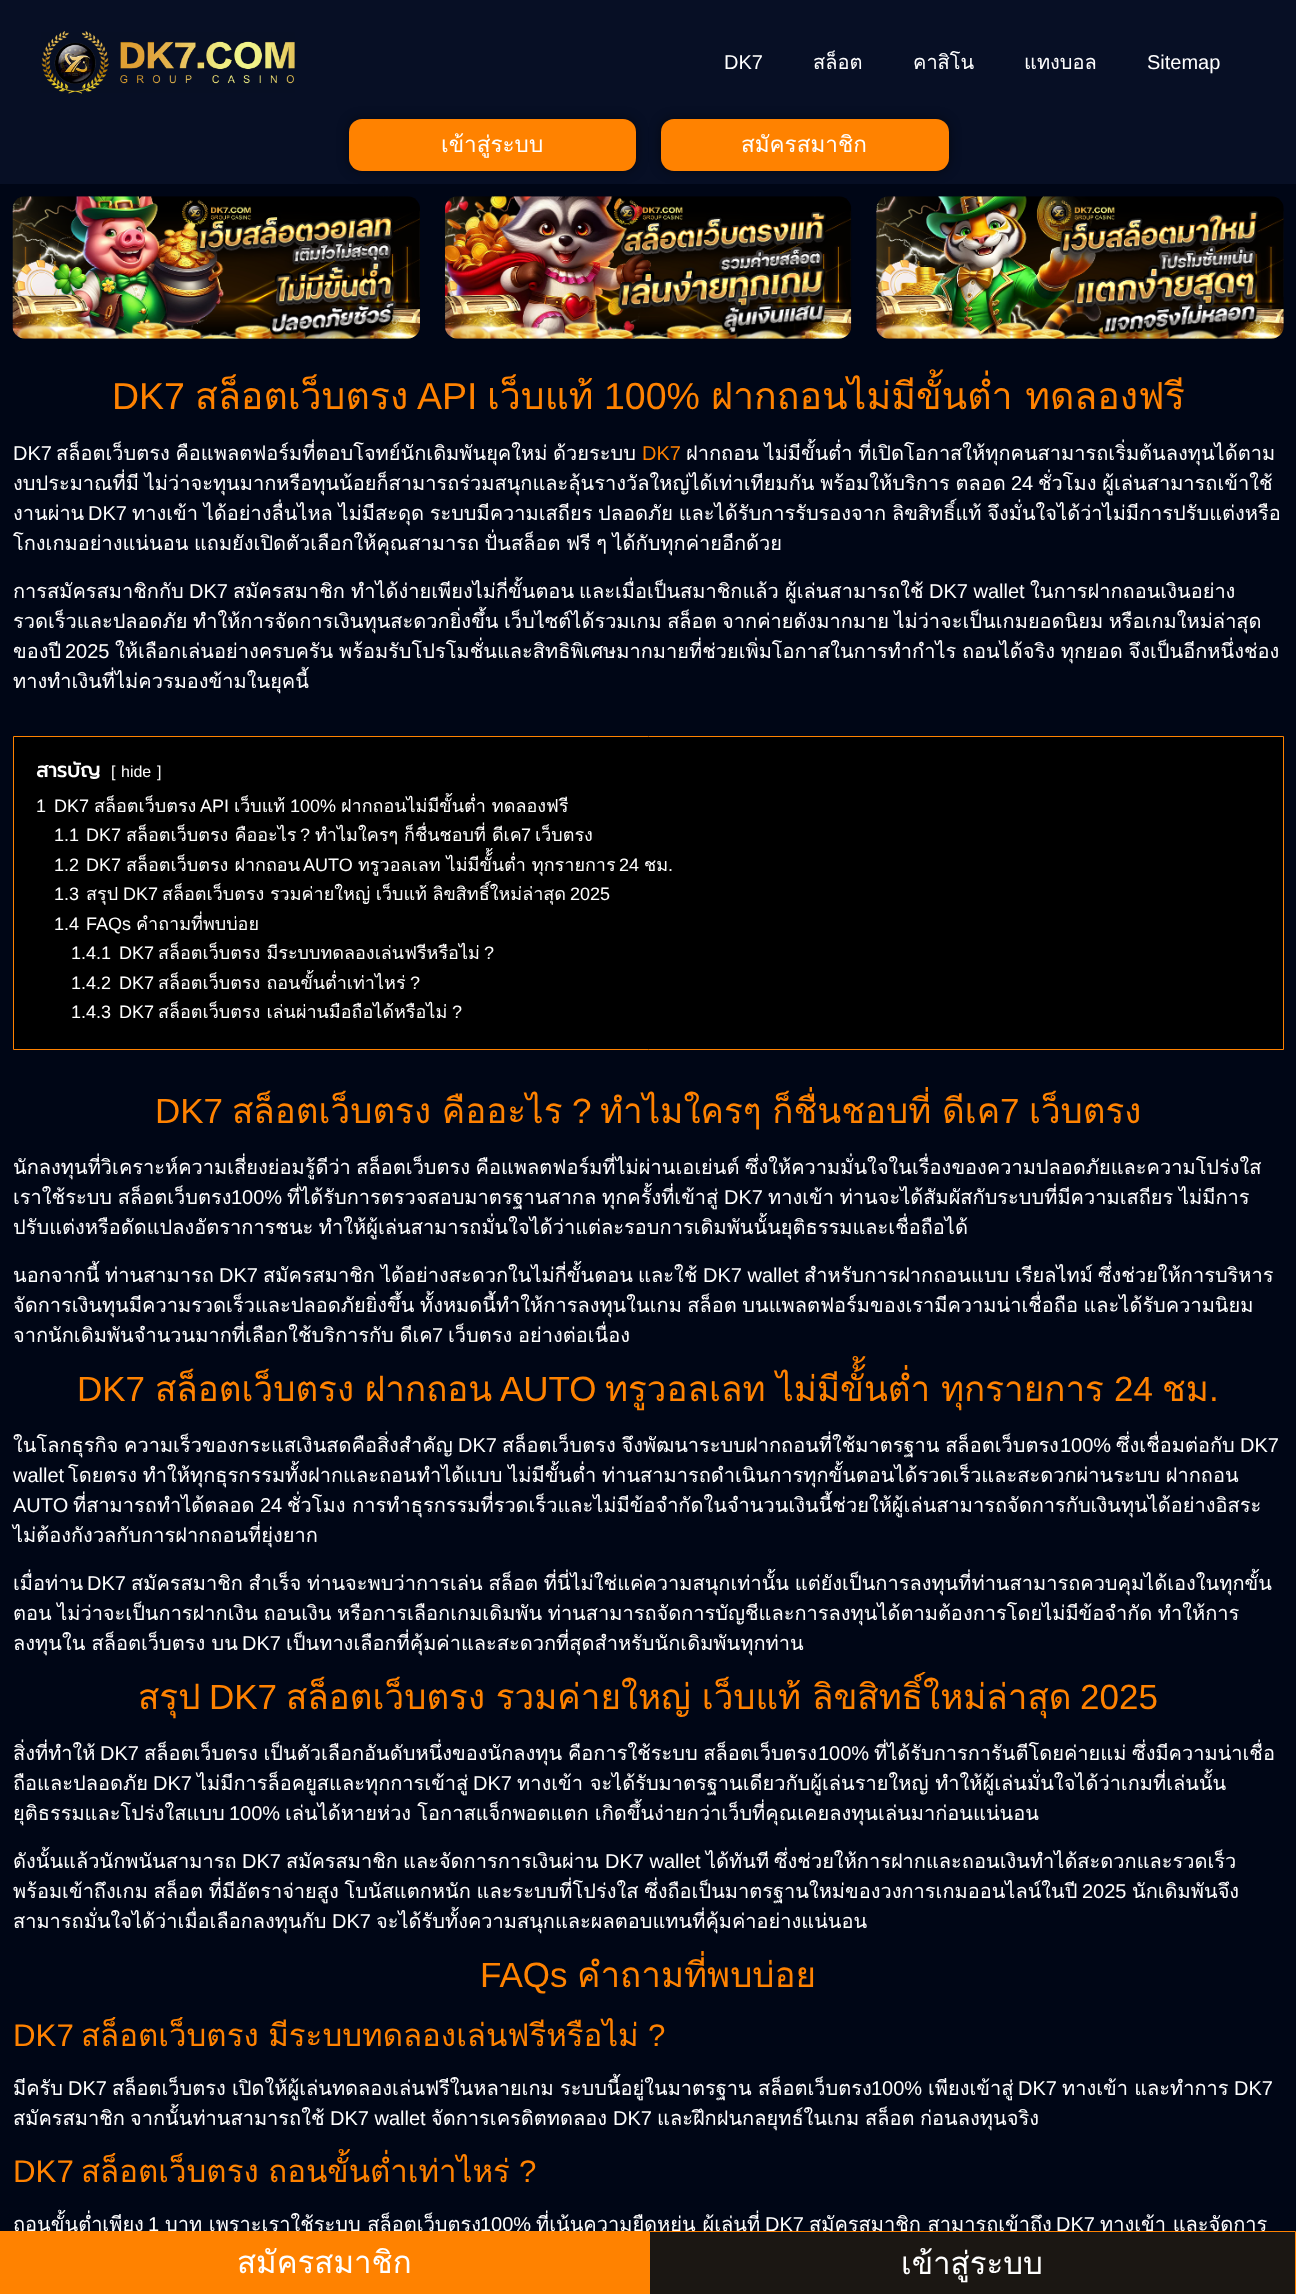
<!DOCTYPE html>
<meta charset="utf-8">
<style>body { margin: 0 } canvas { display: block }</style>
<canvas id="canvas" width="1296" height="2294"></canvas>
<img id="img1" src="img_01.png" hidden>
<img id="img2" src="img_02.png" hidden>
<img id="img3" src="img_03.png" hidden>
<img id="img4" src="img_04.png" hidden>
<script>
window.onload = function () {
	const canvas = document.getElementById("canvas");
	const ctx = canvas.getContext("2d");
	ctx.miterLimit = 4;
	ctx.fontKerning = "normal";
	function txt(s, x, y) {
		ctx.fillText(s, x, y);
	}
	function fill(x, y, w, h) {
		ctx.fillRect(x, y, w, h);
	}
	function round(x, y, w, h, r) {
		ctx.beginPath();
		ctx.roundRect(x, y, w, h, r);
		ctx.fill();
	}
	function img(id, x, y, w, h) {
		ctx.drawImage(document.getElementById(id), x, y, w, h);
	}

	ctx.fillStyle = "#000616";
	fill(0, 0, 1296, 2294);
	ctx.fillStyle = "#070F25";
	fill(0, 0, 1296, 184);
	img("img1", 41, 31, 254, 63);
	ctx.fillStyle = "rgba(0, 0, 0, 0.5)";
	ctx.filter = "blur(6px)";
	ctx.beginPath();
	ctx.roundRect(349, 119, 287, 52, 13);
	ctx.fill();
	ctx.filter = "none";
	ctx.fillStyle = "#FF8200";
	round(349, 119, 287, 52, 13);
	ctx.fillStyle = "rgba(0, 0, 0, 0.5)";
	ctx.filter = "blur(6px)";
	ctx.beginPath();
	ctx.roundRect(661, 119, 288, 52, 13);
	ctx.fill();
	ctx.filter = "none";
	ctx.fillStyle = "#FF8200";
	round(661, 119, 288, 52, 13);
	img("img2", 12, 196, 408, 143);
	img("img3", 445, 196, 407, 143);
	img("img4", 876, 196, 408, 143);
	ctx.fillStyle = "#000000";
	ctx.beginPath();
	ctx.rect(13.5, 736.5, 1270, 313);
	ctx.fill();
	ctx.strokeStyle = "#FF8200";
	ctx.stroke();
	ctx.font = "20px Liberation Sans";
	ctx.fillStyle = "#FFFFFF";
	txt("DK7", 724, 69);
	ctx.font = "20px Loma";
	txt("สล็อต", 813, 69);
	txt("คาสิโน", 913, 69);
	txt("แทงบอล", 1024, 69);
	ctx.font = "20px Liberation Sans";
	txt("Sitemap", 1147, 69);
	ctx.font = "22.5px Loma";
	txt("เข้าสู่ระบบ", 441, 152);
	txt("สมัครสมาชิก", 741, 152);
	ctx.font = "37.5px Liberation Sans";
	ctx.fillStyle = "#FF8200";
	txt("DK7", 112, 409);
	ctx.font = "37.5px Loma";
	txt("สล็อตเว็บตรง", 195, 409);
	ctx.font = "37.5px Liberation Sans";
	txt("API", 417, 409);
	ctx.font = "37.5px Loma";
	txt("เว็บแท้", 487, 409);
	ctx.font = "37.5px Liberation Sans";
	txt("100%", 604, 409);
	ctx.font = "37.5px Loma";
	txt("ฝากถอนไม่มีขั้นต่ำ ทดลองฟรี", 711, 409);
	ctx.font = "20px Liberation Sans";
	ctx.fillStyle = "#FFFFFF";
	txt("DK7", 13, 460);
	ctx.wordSpacing = "-1px";
	ctx.font = "20px Loma";
	txt("สล็อตเว็บตรง คือแพลตฟอร์มที่ตอบโจทย์นักเดิมพันยุคใหม่ ด้วยระบบ", 56, 460);
	ctx.wordSpacing = "0px";
	ctx.font = "20px Liberation Sans";
	ctx.fillStyle = "#FF8200";
	txt("DK7", 642, 460);
	ctx.wordSpacing = "-1px";
	ctx.font = "20px Loma";
	ctx.fillStyle = "#FFFFFF";
	txt("ฝากถอน ไม่มีขั้นต่ำ ที่เปิดโอกาสให้ทุกคนสามารถเริ่มต้นลงทุนได้ตาม", 686, 460);
	txt("งบประมาณที่มี ไม่ว่าจะทุนมากหรือทุนน้อยก็สามารถร่วมสนุกและลุ้นรางวัลใหญ่ได้เท่าเทียมกัน พร้อมให้บริการ ตลอด", 13, 490);
	ctx.wordSpacing = "0px";
	ctx.font = "20px Liberation Sans";
	txt("24", 1011, 490);
	ctx.wordSpacing = "-1px";
	ctx.font = "20px Loma";
	txt("ชั่วโมง ผู้เล่นสามารถเข้าใช้", 1038, 490);
	ctx.wordSpacing = "0px";
	txt("งานผ่าน", 13, 520);
	ctx.font = "20px Liberation Sans";
	txt("DK7", 88, 520);
	ctx.wordSpacing = "-1px";
	ctx.font = "20px Loma";
	txt("ทางเข้า ได้อย่างลื่นไหล ไม่มีสะดุด ระบบมีความเสถียร ปลอดภัย และได้รับการรับรองจาก ลิขสิทธิ์แท้ จึงมั่นใจได้ว่าไม่มีการปรับแต่งหรือ", 132, 520);
	ctx.wordSpacing = "-1.25px";
	txt("โกงเกมอย่างแน่นอน แถมยังเปิดตัวเลือกให้คุณสามารถ ปั่นสล็อต ฟรี ๆ ได้กับทุกค่ายอีกด้วย", 13, 550);
	ctx.wordSpacing = "0px";
	txt("การสมัครสมาชิกกับ", 13, 598);
	ctx.font = "20px Liberation Sans";
	txt("DK7", 189, 598);
	ctx.font = "20px Loma";
	txt("สมัครสมาชิก", 233, 598);
	txt("ทำได้ง่ายเพียงไม่กี่ขั้นตอน", 351, 598);
	txt("และเมื่อเป็นสมาชิกแล้ว", 579, 598);
	txt("ผู้เล่นสามารถใช้", 785, 598);
	ctx.font = "20px Liberation Sans";
	txt("DK7 wallet", 929, 598);
	ctx.font = "20px Loma";
	txt("ในการฝากถอนเงินอย่าง", 1030, 598);
	ctx.wordSpacing = "-1.25px";
	txt("รวดเร็วและปลอดภัย ทำให้การจัดการเงินทุนสะดวกยิ่งขึ้น เว็บไซต์ได้รวมเกม สล็อต จากค่ายดังมากมาย ไม่ว่าจะเป็นเกมยอดนิยม หรือเกมใหม่ล่าสุด", 13, 628);
	ctx.wordSpacing = "0px";
	txt("ของปี", 13, 658);
	ctx.font = "20px Liberation Sans";
	txt("2025", 65, 658);
	ctx.wordSpacing = "-1px";
	ctx.font = "20px Loma";
	txt("ให้เลือกเล่นอย่างครบครัน พร้อมรับโปรโมชั่นและสิทธิพิเศษมากมายที่ช่วยเพิ่มโอกาสในการทำกำไร ถอนได้จริง ทุกยอด จึงเป็นอีกหนึ่งช่อง", 115, 658);
	ctx.wordSpacing = "0px";
	txt("ทางทำเงินที่ไม่ควรมองข้ามในยุคนี้", 13, 688);
	ctx.font = "bold 20px Prompt";
	txt("สารบัญ", 36, 777);
	ctx.font = "16px Liberation Sans";
	txt("[", 111, 777);
	txt("hide", 121, 777);
	txt("]", 157, 777);
	ctx.font = "18px Liberation Sans";
	txt("1", 36, 812);
	txt("DK7", 54, 812);
	ctx.font = "18px Loma";
	txt("สล็อตเว็บตรง", 94, 812);
	ctx.font = "18px Liberation Sans";
	txt("API", 200, 812);
	ctx.font = "18px Loma";
	txt("เว็บแท้", 234, 812);
	ctx.font = "18px Liberation Sans";
	txt("100%", 290, 812);
	ctx.font = "18px Loma";
	txt("ฝากถอนไม่มีขั้นต่ำ ทดลองฟรี", 341, 812);
	ctx.font = "18px Liberation Sans";
	txt("1.1", 54, 841);
	txt("DK7", 86, 841);
	ctx.font = "18px Loma";
	txt("สล็อตเว็บตรง คืออะไร", 126, 841);
	ctx.font = "18px Liberation Sans";
	txt("?", 300, 841);
	ctx.font = "18px Loma";
	txt("ทำไมใครๆ ก็ชื่นชอบที่ ดีเค", 315, 841);
	ctx.font = "18px Liberation Sans";
	txt("7", 521, 841);
	ctx.font = "18px Loma";
	txt("เว็บตรง", 535, 841);
	ctx.font = "18px Liberation Sans";
	txt("1.2", 54, 871);
	txt("DK7", 86, 871);
	ctx.font = "18px Loma";
	txt("สล็อตเว็บตรง ฝากถอน", 126, 871);
	ctx.font = "18px Liberation Sans";
	txt("AUTO", 303, 871);
	ctx.font = "18px Loma";
	txt("ทรูวอลเลท ไม่มีขั้้นต่ำ ทุกรายการ", 358, 871);
	ctx.font = "18px Liberation Sans";
	txt("24", 619, 871);
	ctx.font = "18px Loma";
	txt("ชม", 644, 871);
	ctx.font = "18px Liberation Sans";
	txt(".", 668, 871);
	txt("1.3", 54, 900);
	ctx.font = "18px Loma";
	txt("สรุป", 86, 900);
	ctx.font = "18px Liberation Sans";
	txt("DK7", 123, 900);
	ctx.wordSpacing = "-0.5px";
	ctx.font = "18px Loma";
	txt("สล็อตเว็บตรง รวมค่ายใหญ่ เว็บแท้ ลิขสิทธิ์ใหม่ล่าสุด", 162, 900);
	ctx.wordSpacing = "0px";
	ctx.font = "18px Liberation Sans";
	txt("2025", 570, 900);
	txt("1.4", 54, 930);
	txt("FAQs", 86, 930);
	ctx.font = "18px Loma";
	txt("คำถามที่พบบ่อย", 136, 930);
	ctx.font = "18px Liberation Sans";
	txt("1.4.1", 71, 959);
	txt("DK7", 119, 959);
	ctx.font = "18px Loma";
	txt("สล็อตเว็บตรง มีระบบทดลองเล่นฟรีหรือไม่", 158, 959);
	ctx.font = "18px Liberation Sans";
	txt("?", 484, 959);
	txt("1.4.2", 71, 989);
	txt("DK7", 119, 989);
	ctx.font = "18px Loma";
	txt("สล็อตเว็บตรง ถอนขั้นต่ำเท่าไหร่", 158, 989);
	ctx.font = "18px Liberation Sans";
	txt("?", 410, 989);
	txt("1.4.3", 71, 1018);
	txt("DK7", 119, 1018);
	ctx.font = "18px Loma";
	txt("สล็อตเว็บตรง เล่นผ่านมือถือได้หรือไม่", 158, 1018);
	ctx.font = "18px Liberation Sans";
	txt("?", 452, 1018);
	ctx.font = "35px Liberation Sans";
	ctx.fillStyle = "#FF8200";
	txt("DK7", 155, 1123);
	ctx.wordSpacing = "-1px";
	ctx.font = "35px Loma";
	txt("สล็อตเว็บตรง คืออะไร", 232, 1123);
	ctx.wordSpacing = "0px";
	ctx.font = "35px Liberation Sans";
	txt("?", 572, 1123);
	ctx.wordSpacing = "-1px";
	ctx.font = "35px Loma";
	txt("ทำไมใครๆ ก็ชื่นชอบที่ ดีเค", 600, 1123);
	ctx.wordSpacing = "0px";
	ctx.font = "35px Liberation Sans";
	txt("7", 1000, 1123);
	ctx.font = "35px Loma";
	txt("เว็บตรง", 1029, 1123);
	ctx.wordSpacing = "-1.25px";
	ctx.font = "20px Loma";
	ctx.fillStyle = "#FFFFFF";
	txt("นักลงทุนที่วิเคราะห์ความเสี่ยงย่อมรู้ดีว่า สล็อตเว็บตรง คือแพลตฟอร์มที่ไม่ผ่านเอเย่นต์ ซึ่งให้ความมั่นใจในเรื่องของความปลอดภัยและความโปร่งใส", 13, 1174);
	ctx.wordSpacing = "-1px";
	txt("เราใช้ระบบ สล็อตเว็บตรง", 13, 1204);
	ctx.wordSpacing = "0px";
	ctx.font = "20px Liberation Sans";
	txt("100%", 231, 1204);
	ctx.wordSpacing = "-1px";
	ctx.font = "20px Loma";
	txt("ที่ได้รับการตรวจสอบมาตรฐานสากล ทุกครั้งที่เข้าสู่", 287, 1204);
	ctx.wordSpacing = "0px";
	ctx.font = "20px Liberation Sans";
	txt("DK7", 724, 1204);
	ctx.wordSpacing = "-1px";
	ctx.font = "20px Loma";
	txt("ทางเข้า ท่านจะได้สัมผัสกับระบบที่มีความเสถียร ไม่มีการ", 768, 1204);
	ctx.wordSpacing = "-1.25px";
	txt("ปรับแต่งหรือดัดแปลงอัตราการชนะ ทำให้ผู้เล่นสามารถมั่นใจได้ว่าแต่ละรอบการเดิมพันนั้นยุติธรรมและเชื่อถือได้", 13, 1234);
	ctx.wordSpacing = "0px";
	txt("นอกจากนี้", 13, 1282);
	txt("ท่านสามารถ", 105, 1282);
	ctx.font = "20px Liberation Sans";
	txt("DK7", 219, 1282);
	ctx.font = "20px Loma";
	txt("สมัครสมาชิก", 263, 1282);
	txt("ได้อย่างสะดวกในไม่กี่ขั้นตอน", 381, 1282);
	txt("และใช้", 638, 1282);
	ctx.font = "20px Liberation Sans";
	txt("DK7 wallet", 703, 1282);
	ctx.font = "20px Loma";
	txt("สำหรับการฝากถอนแบบ", 804, 1282);
	txt("เรียลไทม์", 1015, 1282);
	txt("ซึ่งช่วยให้การบริหาร", 1098, 1282);
	ctx.wordSpacing = "-1.25px";
	txt("จัดการเงินทุนมีความรวดเร็วและปลอดภัยยิ่งขึ้น ทั้งหมดนี้ทำให้การลงทุนในเกม สล็อต บนแพลตฟอร์มของเรามีความน่าเชื่อถือ และได้รับความนิยม", 13, 1312);
	ctx.wordSpacing = "-1px";
	txt("จากนักเดิมพันจำนวนมากที่เลือกใช้บริการกับ ดีเค", 13, 1342);
	ctx.wordSpacing = "0px";
	ctx.font = "20px Liberation Sans";
	txt("7", 432, 1342);
	ctx.wordSpacing = "-1px";
	ctx.font = "20px Loma";
	txt("เว็บตรง อย่างต่อเนื่อง", 448, 1342);
	ctx.wordSpacing = "0px";
	ctx.font = "35px Liberation Sans";
	ctx.fillStyle = "#FF8200";
	txt("DK7", 77, 1401);
	ctx.wordSpacing = "-1px";
	ctx.font = "35px Loma";
	txt("สล็อตเว็บตรง ฝากถอน", 155, 1401);
	ctx.wordSpacing = "0px";
	ctx.font = "35px Liberation Sans";
	txt("AUTO", 500, 1401);
	ctx.wordSpacing = "-1px";
	ctx.font = "35px Loma";
	txt("ทรูวอลเลท ไม่มีขั้้นต่ำ ทุกรายการ", 605, 1401);
	ctx.wordSpacing = "0px";
	ctx.font = "35px Liberation Sans";
	txt("24", 1114, 1401);
	ctx.font = "35px Loma";
	txt("ชม", 1162, 1401);
	ctx.font = "35px Liberation Sans";
	txt(".", 1209, 1401);
	ctx.wordSpacing = "-1px";
	ctx.font = "20px Loma";
	ctx.fillStyle = "#FFFFFF";
	txt("ในโลกธุรกิจ ความเร็วของกระแสเงินสดคือสิ่งสำคัญ", 13, 1452);
	ctx.wordSpacing = "0px";
	ctx.font = "20px Liberation Sans";
	txt("DK7", 458, 1452);
	ctx.wordSpacing = "-1px";
	ctx.font = "20px Loma";
	txt("สล็อตเว็บตรง จึงพัฒนาระบบฝากถอนที่ใช้มาตรฐาน สล็อตเว็บตรง", 502, 1452);
	ctx.wordSpacing = "0px";
	ctx.font = "20px Liberation Sans";
	txt("100%", 1060, 1452);
	ctx.font = "20px Loma";
	txt("ซึ่งเชื่อมต่อกับ", 1116, 1452);
	ctx.font = "20px Liberation Sans";
	txt("DK7", 1240, 1452);
	txt("wallet", 13, 1482);
	ctx.wordSpacing = "-1px";
	ctx.font = "20px Loma";
	txt("โดยตรง ทำให้ทุกธุรกรรมทั้งฝากและถอนทำได้แบบ ไม่มีขั้นต่ำ ท่านสามารถดำเนินการทุกขั้นตอนได้รวดเร็วและสะดวกผ่านระบบ ฝากถอน", 68, 1482);
	ctx.wordSpacing = "0px";
	ctx.font = "20px Liberation Sans";
	txt("AUTO", 13, 1512);
	ctx.font = "20px Loma";
	txt("ที่สามารถทำได้ตลอด", 73, 1512);
	ctx.font = "20px Liberation Sans";
	txt("24", 260, 1512);
	ctx.font = "20px Loma";
	txt("ชั่วโมง การทำธุรกรรมที่รวดเร็วและไม่มีข้อจำกัดในจำนวนเงินนี้ช่วยให้ผู้เล่นสามารถจัดการกับเงินทุนได้อย่างอิสระ", 287, 1512);
	txt("ไม่ต้องกังวลกับการฝากถอนที่ยุ่งยาก", 13, 1542);
	txt("เมื่อท่าน", 13, 1590);
	ctx.font = "20px Liberation Sans";
	txt("DK7", 87, 1590);
	ctx.wordSpacing = "-1px";
	ctx.font = "20px Loma";
	txt("สมัครสมาชิก สำเร็จ ท่านจะพบว่าการเล่น สล็อต ที่นี่ไม่ใช่แค่ความสนุกเท่านั้น แต่ยังเป็นการลงทุนที่ท่านสามารถควบคุมได้เองในทุกขั้น", 131, 1590);
	ctx.wordSpacing = "-1.25px";
	txt("ตอน ไม่ว่าจะเป็นการฝากเงิน ถอนเงิน หรือการเลือกเกมเดิมพัน ท่านสามารถจัดการบัญชีและการลงทุนได้ตามต้องการโดยไม่มีข้อจำกัด ทำให้การ", 13, 1620);
	ctx.wordSpacing = "-0.5px";
	txt("ลงทุนใน สล็อตเว็บตรง บน", 13, 1650);
	ctx.wordSpacing = "0px";
	ctx.font = "20px Liberation Sans";
	txt("DK7", 242, 1650);
	ctx.font = "20px Loma";
	txt("เป็นทางเลือกที่คุ้มค่าและสะดวกที่สุดสำหรับนักเดิมพันทุกท่าน", 286, 1650);
	ctx.font = "35px Loma";
	ctx.fillStyle = "#FF8200";
	txt("สรุป", 138, 1709);
	ctx.font = "35px Liberation Sans";
	txt("DK7", 209, 1709);
	ctx.wordSpacing = "-1px";
	ctx.font = "35px Loma";
	txt("สล็อตเว็บตรง รวมค่ายใหญ่ เว็บแท้ ลิขสิทธิ์ใหม่ล่าสุด", 286, 1709);
	ctx.wordSpacing = "0px";
	ctx.font = "35px Liberation Sans";
	txt("2025", 1080, 1709);
	ctx.font = "20px Loma";
	ctx.fillStyle = "#FFFFFF";
	txt("สิ่งที่ทำให้", 13, 1760);
	ctx.font = "20px Liberation Sans";
	txt("DK7", 100, 1760);
	ctx.wordSpacing = "-1px";
	ctx.font = "20px Loma";
	txt("สล็อตเว็บตรง เป็นตัวเลือกอันดับหนึ่งของนักลงทุน คือการใช้ระบบ สล็อตเว็บตรง", 144, 1760);
	ctx.wordSpacing = "0px";
	ctx.font = "20px Liberation Sans";
	txt("100%", 818, 1760);
	ctx.wordSpacing = "-1px";
	ctx.font = "20px Loma";
	txt("ที่ได้รับการการันตีโดยค่ายแม่ ซึ่งมีความน่าเชื่อ", 874, 1760);
	ctx.wordSpacing = "0px";
	txt("ถือและปลอดภัย", 13, 1790);
	ctx.font = "20px Liberation Sans";
	txt("DK7", 153, 1790);
	ctx.font = "20px Loma";
	txt("ไม่มีการล็อคยูสและทุกการเข้าสู่", 197, 1790);
	ctx.font = "20px Liberation Sans";
	txt("DK7", 473, 1790);
	ctx.font = "20px Loma";
	txt("ทางเข้า จะได้รับมาตรฐานเดียวกับผู้เล่นรายใหญ่ ทำให้ผู้เล่นมั่นใจได้ว่าเกมที่เล่นนั้น", 517, 1790);
	txt("ยุติธรรมและโปร่งใสแบบ", 13, 1820);
	ctx.font = "20px Liberation Sans";
	txt("100%", 229, 1820);
	ctx.wordSpacing = "-0.5px";
	ctx.font = "20px Loma";
	txt("เล่นได้หายห่วง โอกาสแจ็กพอตแตก เกิดขึ้นง่ายกว่าเว็บที่คุณเคยลงทุนเล่นมาก่อนแน่นอน", 285, 1820);
	ctx.wordSpacing = "0px";
	txt("ดังนั้นแล้วนักพนันสามารถ", 13, 1868);
	ctx.font = "20px Liberation Sans";
	txt("DK7", 242, 1868);
	ctx.font = "20px Loma";
	txt("สมัครสมาชิก", 286, 1868);
	txt("และจัดการการเงินผ่าน", 403, 1868);
	ctx.font = "20px Liberation Sans";
	txt("DK7 wallet", 605, 1868);
	ctx.font = "20px Loma";
	txt("ได้ทันที", 706, 1868);
	txt("ซึ่งช่วยให้การฝากและถอนเงินทำได้สะดวกและรวดเร็ว", 774, 1868);
	ctx.wordSpacing = "-1px";
	txt("พร้อมเข้าถึงเกม สล็อต ที่มีอัตราจ่ายสูง โบนัสแตกหนัก และระบบที่โปร่งใส ซึ่งถือเป็นมาตรฐานใหม่ของวงการเกมออนไลน์ในปี", 13, 1898);
	ctx.wordSpacing = "0px";
	ctx.font = "20px Liberation Sans";
	txt("2025", 1082, 1898);
	ctx.font = "20px Loma";
	txt("นักเดิมพันจึง", 1132, 1898);
	txt("สามารถมั่นใจได้ว่าเมื่อเลือกลงทุนกับ", 13, 1928);
	ctx.font = "20px Liberation Sans";
	txt("DK7", 332, 1928);
	ctx.font = "20px Loma";
	txt("จะได้รับทั้งความสนุกและผลตอบแทนที่คุ้มค่าอย่างแน่นอน", 376, 1928);
	ctx.font = "35px Liberation Sans";
	ctx.fillStyle = "#FF8200";
	txt("FAQs", 480, 1987);
	ctx.font = "35px Loma";
	txt("คำถามที่พบบ่อย", 577, 1987);
	ctx.font = "31.25px Liberation Sans";
	txt("DK7", 13, 2046);
	ctx.wordSpacing = "-1px";
	ctx.font = "31.25px Loma";
	txt("สล็อตเว็บตรง มีระบบทดลองเล่นฟรีหรือไม่", 81, 2046);
	ctx.wordSpacing = "0px";
	ctx.font = "31.25px Liberation Sans";
	txt("?", 648, 2046);
	ctx.font = "20px Loma";
	ctx.fillStyle = "#FFFFFF";
	txt("มีครับ", 13, 2095);
	ctx.font = "20px Liberation Sans";
	txt("DK7", 68, 2095);
	ctx.wordSpacing = "-0.5px";
	ctx.font = "20px Loma";
	txt("สล็อตเว็บตรง เปิดให้ผู้เล่นทดลองเล่นฟรีในหลายเกม ระบบนี้อยู่ในมาตรฐาน สล็อตเว็บตรง", 112, 2095);
	ctx.wordSpacing = "0px";
	ctx.font = "20px Liberation Sans";
	txt("100%", 871, 2095);
	ctx.font = "20px Loma";
	txt("เพียงเข้าสู่", 928, 2095);
	ctx.font = "20px Liberation Sans";
	txt("DK7", 1018, 2095);
	ctx.wordSpacing = "-0.5px";
	ctx.font = "20px Loma";
	txt("ทางเข้า และทำการ", 1062, 2095);
	ctx.wordSpacing = "0px";
	ctx.font = "20px Liberation Sans";
	txt("DK7", 1234, 2095);
	ctx.font = "20px Loma";
	txt("สมัครสมาชิก", 13, 2125);
	txt("จากนั้นท่านสามารถใช้", 130, 2125);
	ctx.font = "20px Liberation Sans";
	txt("DK7 wallet", 330, 2125);
	ctx.font = "20px Loma";
	txt("จัดการเครดิตทดลอง", 431, 2125);
	ctx.font = "20px Liberation Sans";
	txt("DK7", 613, 2125);
	ctx.font = "20px Loma";
	txt("และฝึกฝนกลยุทธ์ในเกม", 657, 2125);
	txt("สล็อต", 865, 2125);
	txt("ก่อนลงทุนจริง", 920, 2125);
	ctx.font = "31.25px Liberation Sans";
	ctx.fillStyle = "#FF8200";
	txt("DK7", 13, 2182);
	ctx.wordSpacing = "-1px";
	ctx.font = "31.25px Loma";
	txt("สล็อตเว็บตรง ถอนขั้นต่ำเท่าไหร่", 81, 2182);
	ctx.wordSpacing = "0px";
	ctx.font = "31.25px Liberation Sans";
	txt("?", 519, 2182);
	ctx.font = "20px Loma";
	ctx.fillStyle = "#FFFFFF";
	txt("ถอนขั้นต่ำเพียง", 13, 2231);
	ctx.font = "20px Liberation Sans";
	txt("1", 148, 2231);
	ctx.font = "20px Loma";
	txt("บาท เพราะเราใช้ระบบ สล็อตเว็บตรง", 165, 2231);
	ctx.font = "20px Liberation Sans";
	txt("100%", 480, 2231);
	ctx.font = "20px Loma";
	txt("ที่เน้นความยืดหยุ่น ผู้เล่นที่", 536, 2231);
	ctx.font = "20px Liberation Sans";
	txt("DK7", 765, 2231);
	ctx.font = "20px Loma";
	txt("สมัครสมาชิก สามารถเข้าถึง", 809, 2231);
	ctx.font = "20px Liberation Sans";
	txt("DK7", 1056, 2231);
	ctx.font = "20px Loma";
	txt("ทางเข้า และจัดการ", 1100, 2231);
	ctx.fillStyle = "#FF8200";
	fill(0, 2231, 649, 63);
	ctx.font = "31.25px Loma";
	ctx.fillStyle = "#FFFFFF";
	txt("สมัครสมาชิก", 237, 2273);
	ctx.fillStyle = "#1B1713";
	ctx.beginPath();
	ctx.rect(649.5, 2231.5, 646, 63);
	ctx.fill();
	ctx.stroke();
	ctx.fillStyle = "#FFFFFF";
	txt("เข้าสู่ระบบ", 901, 2274);
};
</script>
